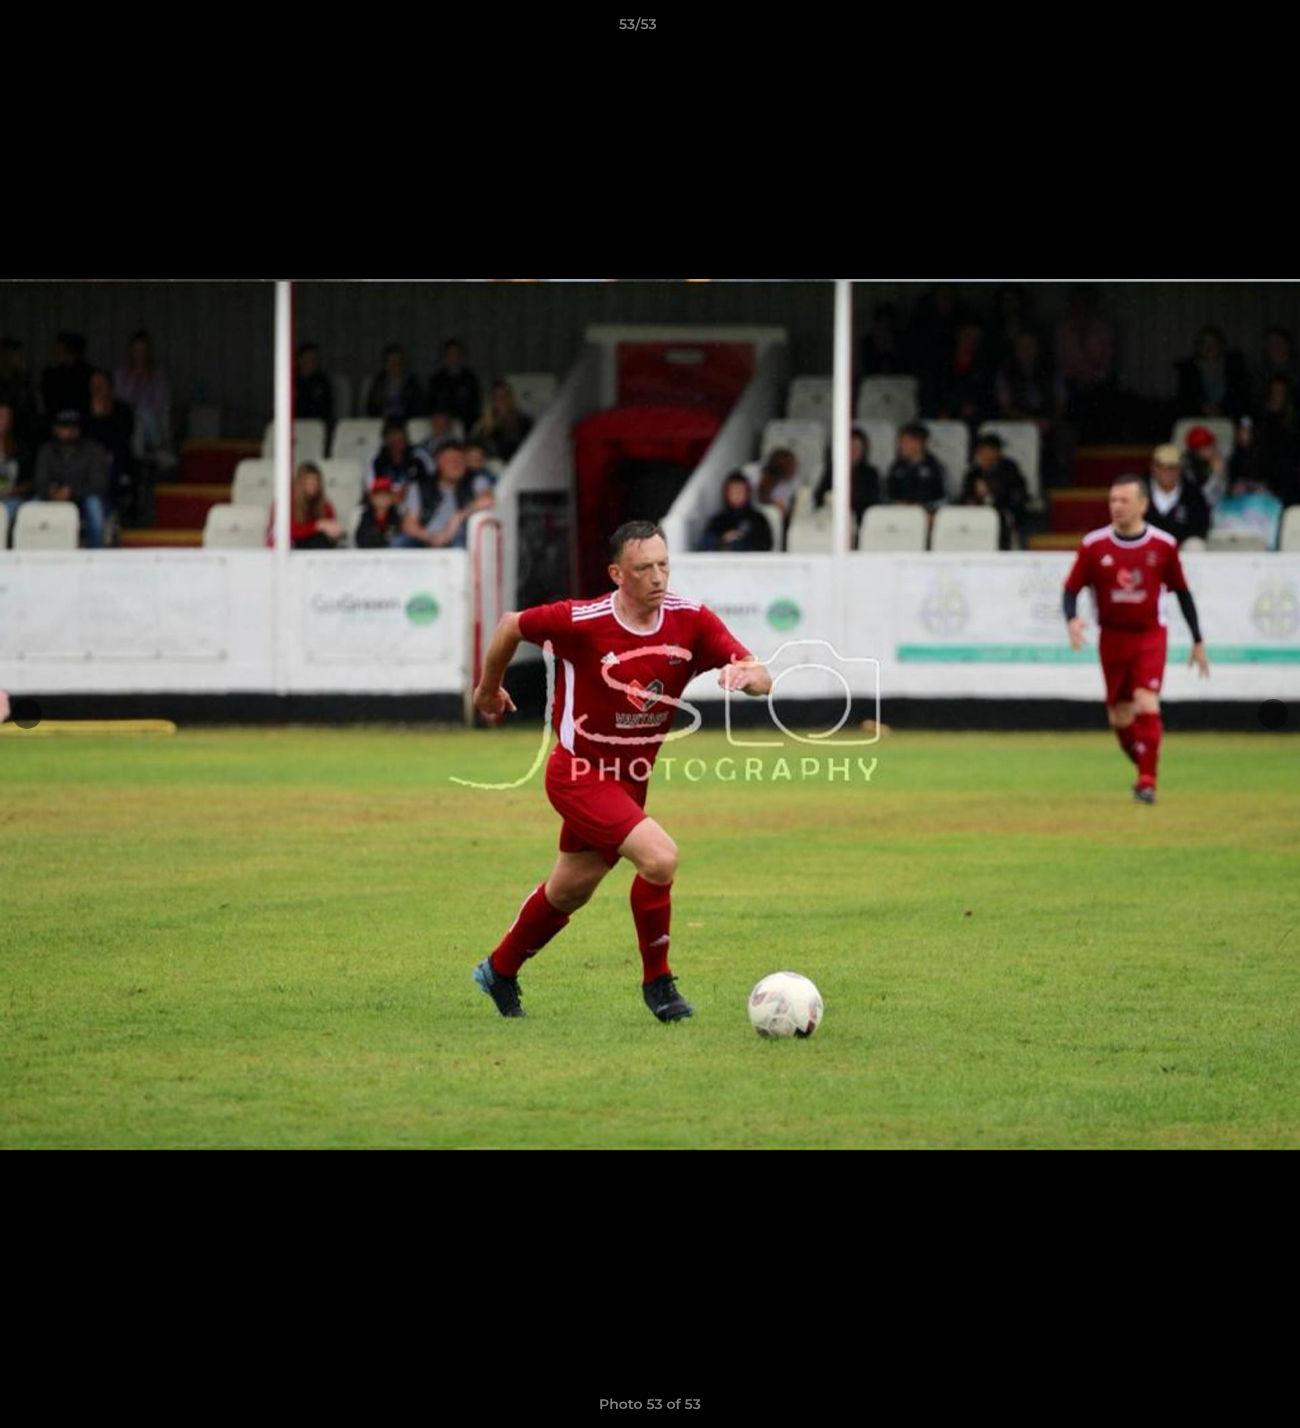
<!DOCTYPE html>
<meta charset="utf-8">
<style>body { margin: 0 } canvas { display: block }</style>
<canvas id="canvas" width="1300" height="1428"></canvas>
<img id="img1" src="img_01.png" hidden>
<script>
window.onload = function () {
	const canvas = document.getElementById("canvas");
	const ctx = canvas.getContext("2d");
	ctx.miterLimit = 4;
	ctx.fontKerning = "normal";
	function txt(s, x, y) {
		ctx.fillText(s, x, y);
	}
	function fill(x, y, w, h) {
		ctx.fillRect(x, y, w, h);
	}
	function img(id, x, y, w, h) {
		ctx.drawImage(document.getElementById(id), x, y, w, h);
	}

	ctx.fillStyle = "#000000";
	fill(0, 0, 1300, 1428);
	img("img1", 0, 279, 1300, 872);
	ctx.fillStyle = "rgba(0, 0, 0, 0.5)";
	ctx.beginPath();
	ctx.arc(27, 714, 15, 0, Math.PI * 2);
	ctx.fill();
	ctx.beginPath();
	ctx.arc(1273, 714, 15, 0, Math.PI * 2);
	ctx.fill();
	ctx.font = "600 14px Montserrat";
	ctx.fillStyle = "#808080";
	txt("53/53", 619, 29);
	txt("Photo 53 of 53", 599, 1409);
};
</script>
